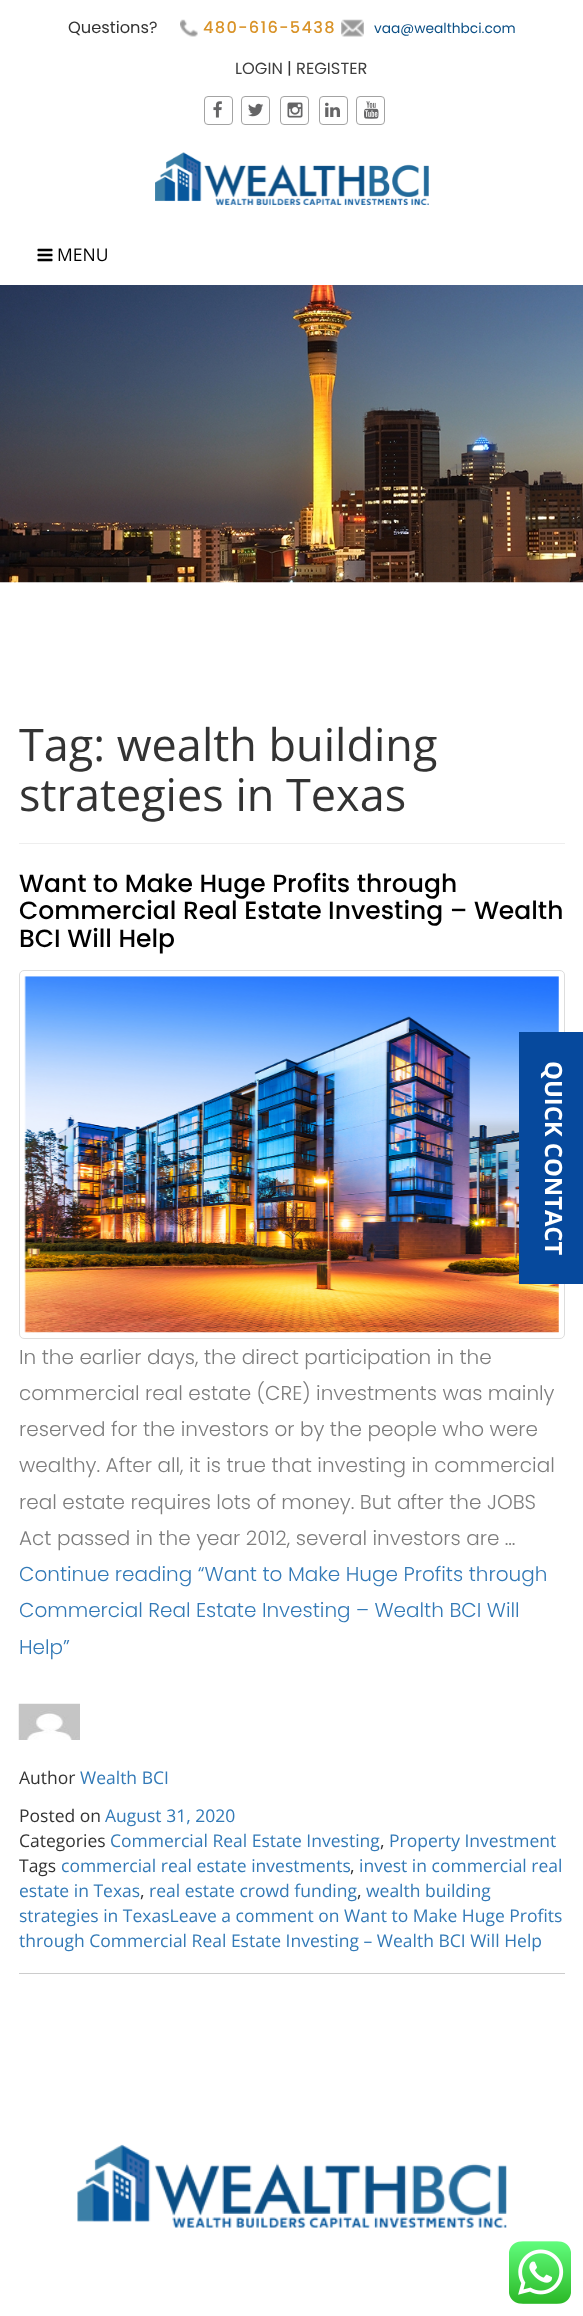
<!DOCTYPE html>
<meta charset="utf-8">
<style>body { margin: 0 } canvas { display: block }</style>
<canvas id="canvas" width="583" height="2316"></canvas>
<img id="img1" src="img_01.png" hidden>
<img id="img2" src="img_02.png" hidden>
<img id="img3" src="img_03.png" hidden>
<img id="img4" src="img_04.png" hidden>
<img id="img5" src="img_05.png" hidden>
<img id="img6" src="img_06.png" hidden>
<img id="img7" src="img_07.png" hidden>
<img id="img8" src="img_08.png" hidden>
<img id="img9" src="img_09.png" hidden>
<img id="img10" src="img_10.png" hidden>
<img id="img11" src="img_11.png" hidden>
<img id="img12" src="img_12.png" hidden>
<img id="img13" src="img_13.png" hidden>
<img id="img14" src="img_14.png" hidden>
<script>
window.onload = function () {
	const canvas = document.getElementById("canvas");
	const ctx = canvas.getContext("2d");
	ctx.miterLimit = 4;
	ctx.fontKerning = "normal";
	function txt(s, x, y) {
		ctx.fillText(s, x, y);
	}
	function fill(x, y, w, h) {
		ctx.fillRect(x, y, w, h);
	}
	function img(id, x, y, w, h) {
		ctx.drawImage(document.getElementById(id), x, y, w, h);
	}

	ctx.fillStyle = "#FFFFFF";
	fill(0, 0, 583, 2316);
	img("img1", 180, 19, 18, 18);
	img("img2", 341, 19, 23, 18);
	ctx.beginPath();
	ctx.roundRect(204.5, 96.5, 28, 28, 3.5);
	ctx.strokeStyle = "#A3A3A3";
	ctx.stroke();
	img("img3", 213, 101, 9, 17);
	ctx.beginPath();
	ctx.roundRect(241.5, 96.5, 28, 28, 3.5);
	ctx.stroke();
	img("img4", 248, 103, 16, 14);
	ctx.beginPath();
	ctx.roundRect(280.5, 96.5, 28, 28, 3.5);
	ctx.stroke();
	img("img5", 287, 102, 16, 16);
	ctx.beginPath();
	ctx.roundRect(319.5, 96.5, 28, 28, 3.5);
	ctx.stroke();
	img("img6", 325, 102, 15, 15);
	ctx.beginPath();
	ctx.roundRect(356.5, 96.5, 28, 28, 3.5);
	ctx.stroke();
	img("img7", 364, 101, 15, 18);
	img("img8", 155, 152, 274, 53);
	img("img9", 37, 248, 16, 14);
	img("img10", 0, 285, 583, 298);
	ctx.fillStyle = "#EEEEEE";
	fill(19, 843, 546, 1);
	ctx.fillStyle = "#CCCCCC";
	fill(19, 1973, 546, 1);
	ctx.beginPath();
	ctx.roundRect(19.5, 970.5, 545, 368, 4.5);
	ctx.strokeStyle = "#DDDDDD";
	ctx.stroke();
	img("img11", 24, 976, 535, 357);
	img("img12", 18, 1703, 62, 37);
	ctx.fillStyle = "rgba(78, 86, 79, 0.21)";
	ctx.filter = "blur(4px)";
	ctx.beginPath();
	ctx.rect(428, 1123, 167, 70);
	ctx.fill();
	ctx.filter = "none";
	ctx.fillStyle = "#06499D";
	fill(519, 1032, 64, 252);
	img("img13", 77, 2144, 430, 84);
	img("img14", 509, 2241, 62, 63);
	ctx.font = "16.25px Poppins";
	ctx.fillStyle = "#333333";
	txt("Questions?", 68, 33);
	ctx.letterSpacing = "1.25px";
	ctx.font = "500 16.25px Poppins";
	ctx.fillStyle = "#D99328";
	txt("480-616-5438", 203, 33);
	ctx.letterSpacing = "0px";
	ctx.font = "13.75px Poppins";
	ctx.fillStyle = "#0B4F85";
	txt("vaa@wealthbci.com", 374, 33);
	ctx.font = "16.25px Poppins";
	ctx.fillStyle = "#3E3E3E";
	txt("LOGIN", 235, 74);
	ctx.fillStyle = "#333333";
	txt("|", 287, 74);
	ctx.fillStyle = "#3E3E3E";
	txt("REGISTER", 296, 74);
	ctx.font = "17.5px Open Sans";
	ctx.fillStyle = "#000000";
	txt("MENU", 57, 261);
	ctx.font = "45px Open Sans";
	ctx.fillStyle = "#333333";
	txt("Tag: wealth building", 19, 761);
	txt("strategies in Texas", 19, 811);
	ctx.font = "500 25px Poppins";
	ctx.fillStyle = "#000000";
	txt("Want to Make Huge Profits through", 19, 892);
	txt("Commercial Real Estate Investing – Wealth", 19, 919);
	txt("BCI Will Help", 19, 947);
	ctx.font = "300 20px Poppins";
	ctx.fillStyle = "#7D7D7D";
	txt("In the earlier days, the direct participation in the", 19, 1364);
	txt("commercial real estate (CRE) investments was mainly", 19, 1400);
	txt("reserved for the investors or by the people who were", 19, 1436);
	txt("wealthy. After all, it is true that investing in commercial", 19, 1472);
	txt("real estate requires lots of money. But after the JOBS", 19, 1509);
	txt("Act passed in the year 2012, several investors are …", 19, 1545);
	ctx.fillStyle = "#337AB7";
	txt("Continue reading “Want to Make Huge Profits through", 19, 1581);
	txt("Commercial Real Estate Investing – Wealth BCI Will", 19, 1617);
	txt("Help”", 19, 1654);
	ctx.font = "17.5px Open Sans";
	ctx.fillStyle = "#333333";
	txt("Author", 19, 1784);
	ctx.fillStyle = "#337AB7";
	txt("Wealth BCI", 80, 1784);
	ctx.fillStyle = "#333333";
	txt("Posted on", 19, 1822);
	ctx.fillStyle = "#337AB7";
	txt("August 31, 2020", 105, 1822);
	ctx.fillStyle = "#333333";
	txt("Categories", 19, 1847);
	ctx.fillStyle = "#337AB7";
	txt("Commercial Real Estate Investing", 110, 1847);
	ctx.fillStyle = "#333333";
	txt(",", 380, 1847);
	ctx.fillStyle = "#337AB7";
	txt("Property Investment", 389, 1847);
	ctx.fillStyle = "#333333";
	txt("Tags", 19, 1872);
	ctx.fillStyle = "#337AB7";
	txt("commercial real estate investments", 61, 1872);
	ctx.fillStyle = "#333333";
	txt(",", 350, 1872);
	ctx.fillStyle = "#337AB7";
	txt("invest in commercial real", 359, 1872);
	txt("estate in Texas", 19, 1897);
	ctx.fillStyle = "#333333";
	txt(",", 140, 1897);
	ctx.fillStyle = "#337AB7";
	txt("real estate crowd funding", 149, 1897);
	ctx.fillStyle = "#333333";
	txt(",", 357, 1897);
	ctx.fillStyle = "#337AB7";
	txt("wealth building", 366, 1897);
	txt("strategies in TexasLeave a comment on Want to Make Huge Profits", 19, 1922);
	txt("through Commercial Real Estate Investing – Wealth BCI Will Help", 19, 1947);
	ctx.font = "bold 23.75px Open Sans";
	ctx.fillStyle = "#FFFFFF";
	ctx.save();
	ctx.translate(545, 1061);
	ctx.rotate(90 * Math.PI / 180);
	ctx.fillText("QUICK CONTACT", 0, 0);
	ctx.restore();
};
</script>
